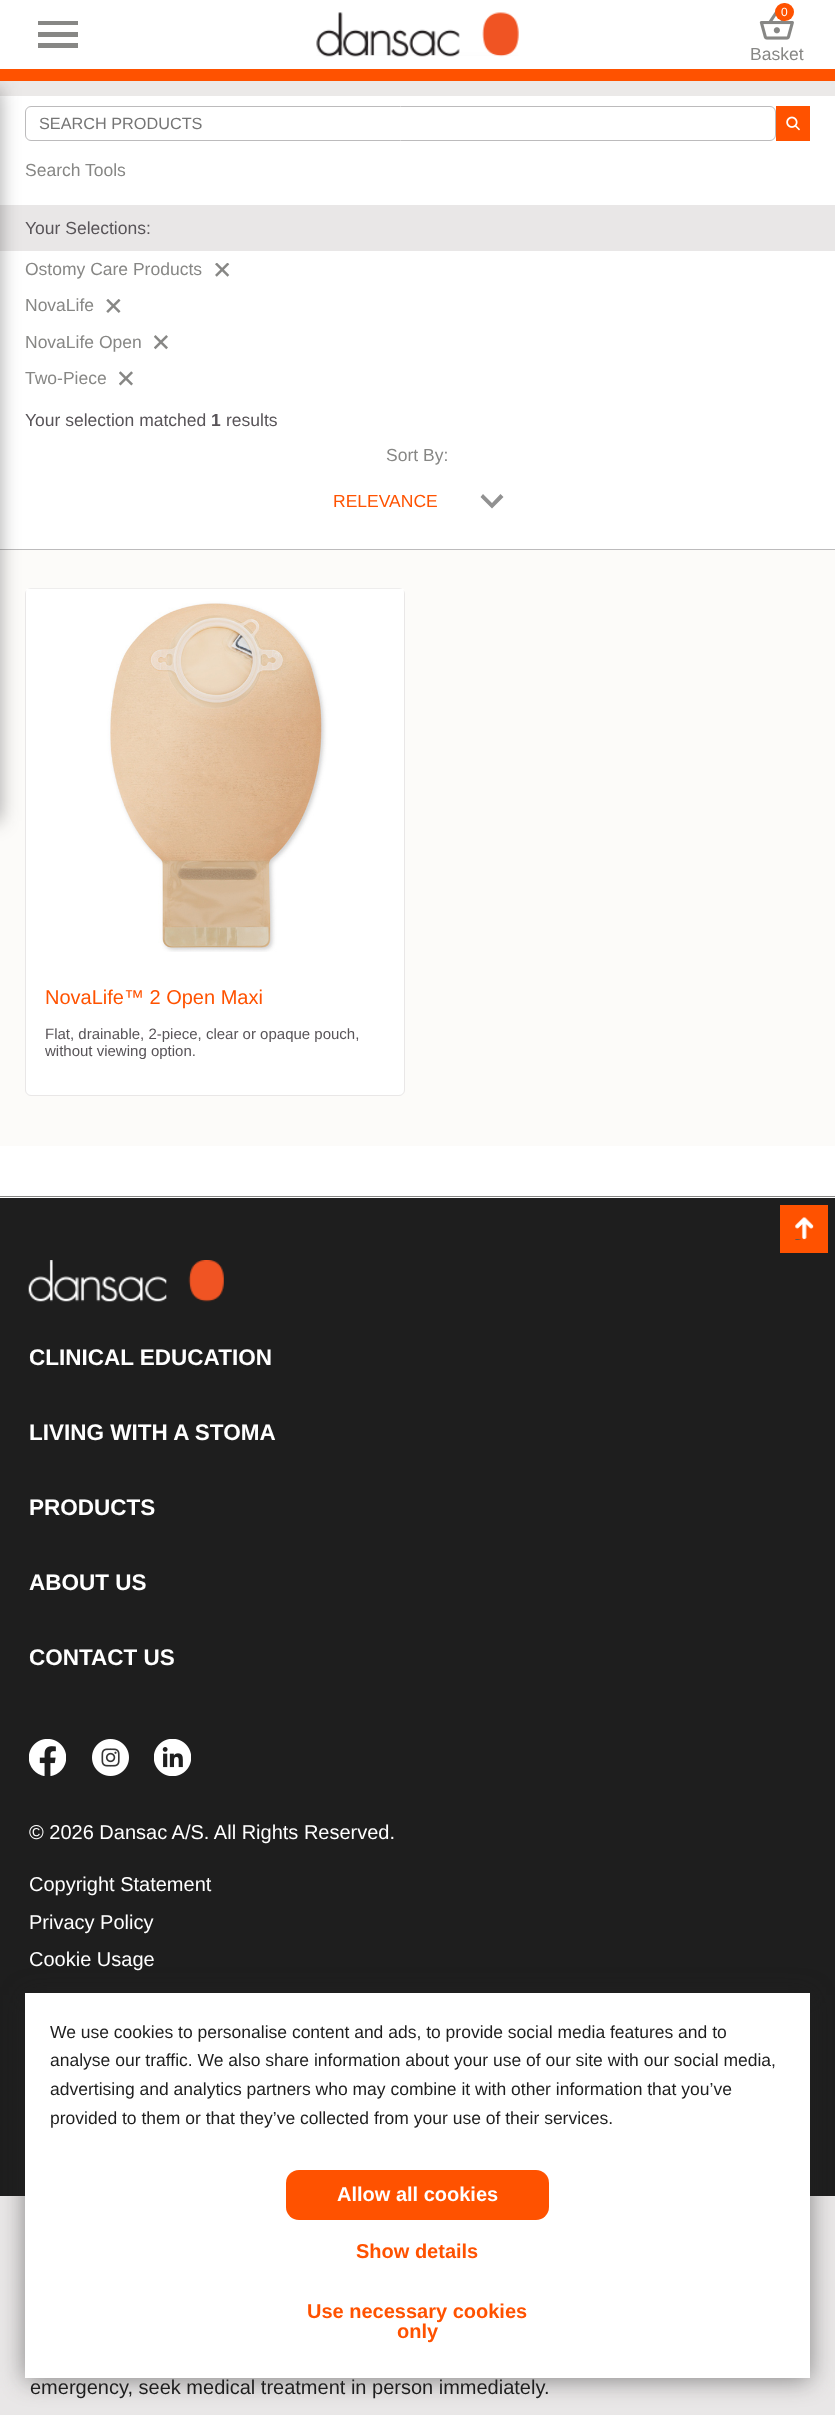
<!DOCTYPE html>
<meta charset="utf-8">
<style>body { margin: 0 } canvas { display: block }</style>
<canvas id="canvas" width="835" height="2415"></canvas>
<img id="img1" src="img_08.png" hidden>
<img id="img2" src="img_01.png" hidden>
<img id="img3" src="img_02.png" hidden>
<img id="img4" src="img_03.png" hidden>
<img id="img5" src="img_04.png" hidden>
<img id="img6" src="img_05.png" hidden>
<img id="img7" src="img_06.png" hidden>
<img id="img8" src="img_07.png" hidden>
<img id="img9" src="img_09.png" hidden>
<img id="img10" src="img_10.png" hidden>
<img id="img11" src="img_11.png" hidden>
<img id="img12" src="img_12.png" hidden>
<img id="img13" src="img_13.png" hidden>
<script>
window.onload = function () {
	const canvas = document.getElementById("canvas");
	const ctx = canvas.getContext("2d");
	ctx.miterLimit = 4;
	ctx.fontKerning = "normal";
	function txt(s, x, y) {
		ctx.fillText(s, x, y);
	}
	function fill(x, y, w, h) {
		ctx.fillRect(x, y, w, h);
	}
	function round(x, y, w, h, r) {
		ctx.beginPath();
		ctx.roundRect(x, y, w, h, r);
		ctx.fill();
	}
	function img(id, x, y, w, h) {
		ctx.drawImage(document.getElementById(id), x, y, w, h);
	}

	ctx.fillStyle = "#FFFFFF";
	fill(0, 0, 835, 2415);
	ctx.fillStyle = "#EBE9E8";
	fill(0, 81, 835, 15);
	ctx.beginPath();
	ctx.roundRect(25.5, 106.5, 750, 34, 5.5);
	ctx.strokeStyle = "#BCBBBC";
	ctx.stroke();
	ctx.fillStyle = "#E9E7E7";
	fill(0, 205, 835, 46);
	ctx.fillStyle = "#BCBBBC";
	fill(0, 549, 835, 1);
	ctx.fillStyle = "#FCFBF9";
	fill(0, 550, 835, 596);
	ctx.fillStyle = "#FFFFFF";
	ctx.beginPath();
	ctx.roundRect(25.5, 588.5, 379, 507, 5.5);
	ctx.fill();
	ctx.strokeStyle = "#E9E7E7";
	ctx.stroke();
	img("img1", 26, 588, 378, 364);
	ctx.fillStyle = "rgba(36, 36, 36, 0.4)";
	ctx.filter = "blur(9.5px)";
	ctx.beginPath();
	ctx.rect(-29, 88, 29, 733);
	ctx.fill();
	ctx.filter = "none";
	ctx.fillStyle = "#FF5200";
	fill(0, 69, 835, 12);
	ctx.fillStyle = "#878785";
	ctx.beginPath();
	ctx.moveTo(38, 48);
	ctx.lineTo(78, 48);
	ctx.lineTo(78, 43);
	ctx.lineTo(38, 43);
	ctx.closePath();
	ctx.moveTo(38, 37);
	ctx.lineTo(78, 37);
	ctx.lineTo(78, 32);
	ctx.lineTo(38, 32);
	ctx.closePath();
	ctx.moveTo(38, 21);
	ctx.lineTo(38, 25);
	ctx.lineTo(78, 25);
	ctx.lineTo(78, 21);
	ctx.closePath();
	ctx.fill();
	img("img2", 316, 12, 203, 45);
	img("img3", 759, 10, 35, 30);
	ctx.fillStyle = "#FF5200";
	round(775, 3, 19, 18, 9);
	fill(776, 106, 34, 35);
	img("img4", 786, 116, 14, 15);
	img("img5", 215, 263, 15, 14);
	img("img6", 106, 299, 15, 14);
	img("img7", 154, 335, 14, 15);
	img("img8", 119, 371, 14, 15);
	ctx.fillStyle = "#919191";
	ctx.beginPath();
	ctx.moveTo(483, 494);
	ctx.lineTo(480.5, 497);
	ctx.lineTo(492, 508.5);
	ctx.lineTo(503.5, 497);
	ctx.lineTo(500.5, 494);
	ctx.lineTo(492, 503);
	ctx.closePath();
	ctx.fill();
	ctx.fillStyle = "#1E1E1E";
	fill(0, 1198, 835, 998);
	ctx.fillStyle = "#878785";
	fill(0, 1196, 835, 1);
	ctx.fillStyle = "#FF5200";
	fill(780, 1205, 48, 48);
	img("img9", 795, 1217, 19, 23);
	img("img10", 28, 1260, 196, 42);
	img("img11", 29, 1739, 37, 37);
	img("img12", 92, 1739, 37, 37);
	img("img13", 154, 1739, 37, 37);
	ctx.fillStyle = "#E9E7E7";
	fill(0, 2196, 835, 219);
	ctx.fillStyle = "rgba(33, 33, 33, 0.5)";
	ctx.filter = "blur(12.5px)";
	ctx.beginPath();
	ctx.rect(25, 1995, 785, 385);
	ctx.fill();
	ctx.filter = "none";
	ctx.fillStyle = "#FFFFFF";
	fill(25, 1993, 785, 385);
	ctx.fillStyle = "#FF5200";
	round(286, 2170, 263, 50, 13);
	ctx.font = "12px Liberation Sans";
	ctx.fillStyle = "#FFFFFF";
	txt("0", 781, 16);
	ctx.font = "17.5px Liberation Sans";
	ctx.fillStyle = "#878785";
	txt("Basket", 750, 60);
	ctx.font = "16.25px Liberation Sans";
	ctx.fillStyle = "#757575";
	txt("SEARCH PRODUCTS", 39, 129);
	ctx.font = "17.5px Liberation Sans";
	ctx.fillStyle = "#878785";
	txt("Search Tools", 25, 176);
	ctx.fillStyle = "#585458";
	txt("Your Selections:", 25, 234);
	ctx.fillStyle = "#878785";
	txt("Ostomy Care Products", 25, 275);
	txt("NovaLife", 25, 311);
	txt("NovaLife Open", 25, 348);
	txt("Two-Piece", 25, 384);
	ctx.fillStyle = "#585458";
	txt("Your selection matched", 25, 426);
	ctx.font = "bold 17.5px Liberation Sans";
	txt("1", 211, 426);
	ctx.font = "17.5px Liberation Sans";
	txt("results", 226, 426);
	ctx.fillStyle = "#878785";
	txt("Sort By:", 386, 461);
	ctx.fillStyle = "#FF5200";
	txt("RELEVANCE", 333, 507);
	ctx.font = "20px Liberation Sans";
	txt("NovaLife™ 2 Open Maxi", 45, 1004);
	ctx.font = "15px Liberation Sans";
	ctx.fillStyle = "#585458";
	txt("Flat, drainable, 2-piece, clear or opaque pouch,", 45, 1039);
	txt("without viewing option.", 45, 1056);
	ctx.font = "bold 22.5px Liberation Sans";
	ctx.fillStyle = "#FFFFFF";
	txt("CLINICAL EDUCATION", 29, 1365);
	txt("LIVING WITH A STOMA", 29, 1440);
	txt("PRODUCTS", 29, 1515);
	txt("ABOUT US", 29, 1590);
	txt("CONTACT US", 29, 1665);
	ctx.font = "20px Liberation Sans";
	txt("© 2026 Dansac A/S. All Rights Reserved.", 29, 1839);
	txt("Copyright Statement", 29, 1891);
	txt("Privacy Policy", 29, 1929);
	txt("Cookie Usage", 29, 1966);
	ctx.fillStyle = "#1E1E1E";
	txt("emergency, seek medical treatment in person immediately.", 30, 2394);
	ctx.font = "17.5px Liberation Sans";
	txt("We use cookies to personalise content and ads, to provide social media features and to", 50, 2038);
	txt("analyse our traffic. We also share information about your use of our site with our social media,", 50, 2066);
	txt("advertising and analytics partners who may combine it with other information that you’ve", 50, 2095);
	txt("provided to them or that they’ve collected from your use of their services.", 50, 2124);
	ctx.font = "bold 20px Liberation Sans";
	ctx.fillStyle = "#FFFFFF";
	txt("Allow all cookies", 337, 2201);
	ctx.fillStyle = "#FF5200";
	txt("Show details", 356, 2258);
	txt("Use necessary cookies", 307, 2318);
	txt("only", 397, 2338);
};
</script>
